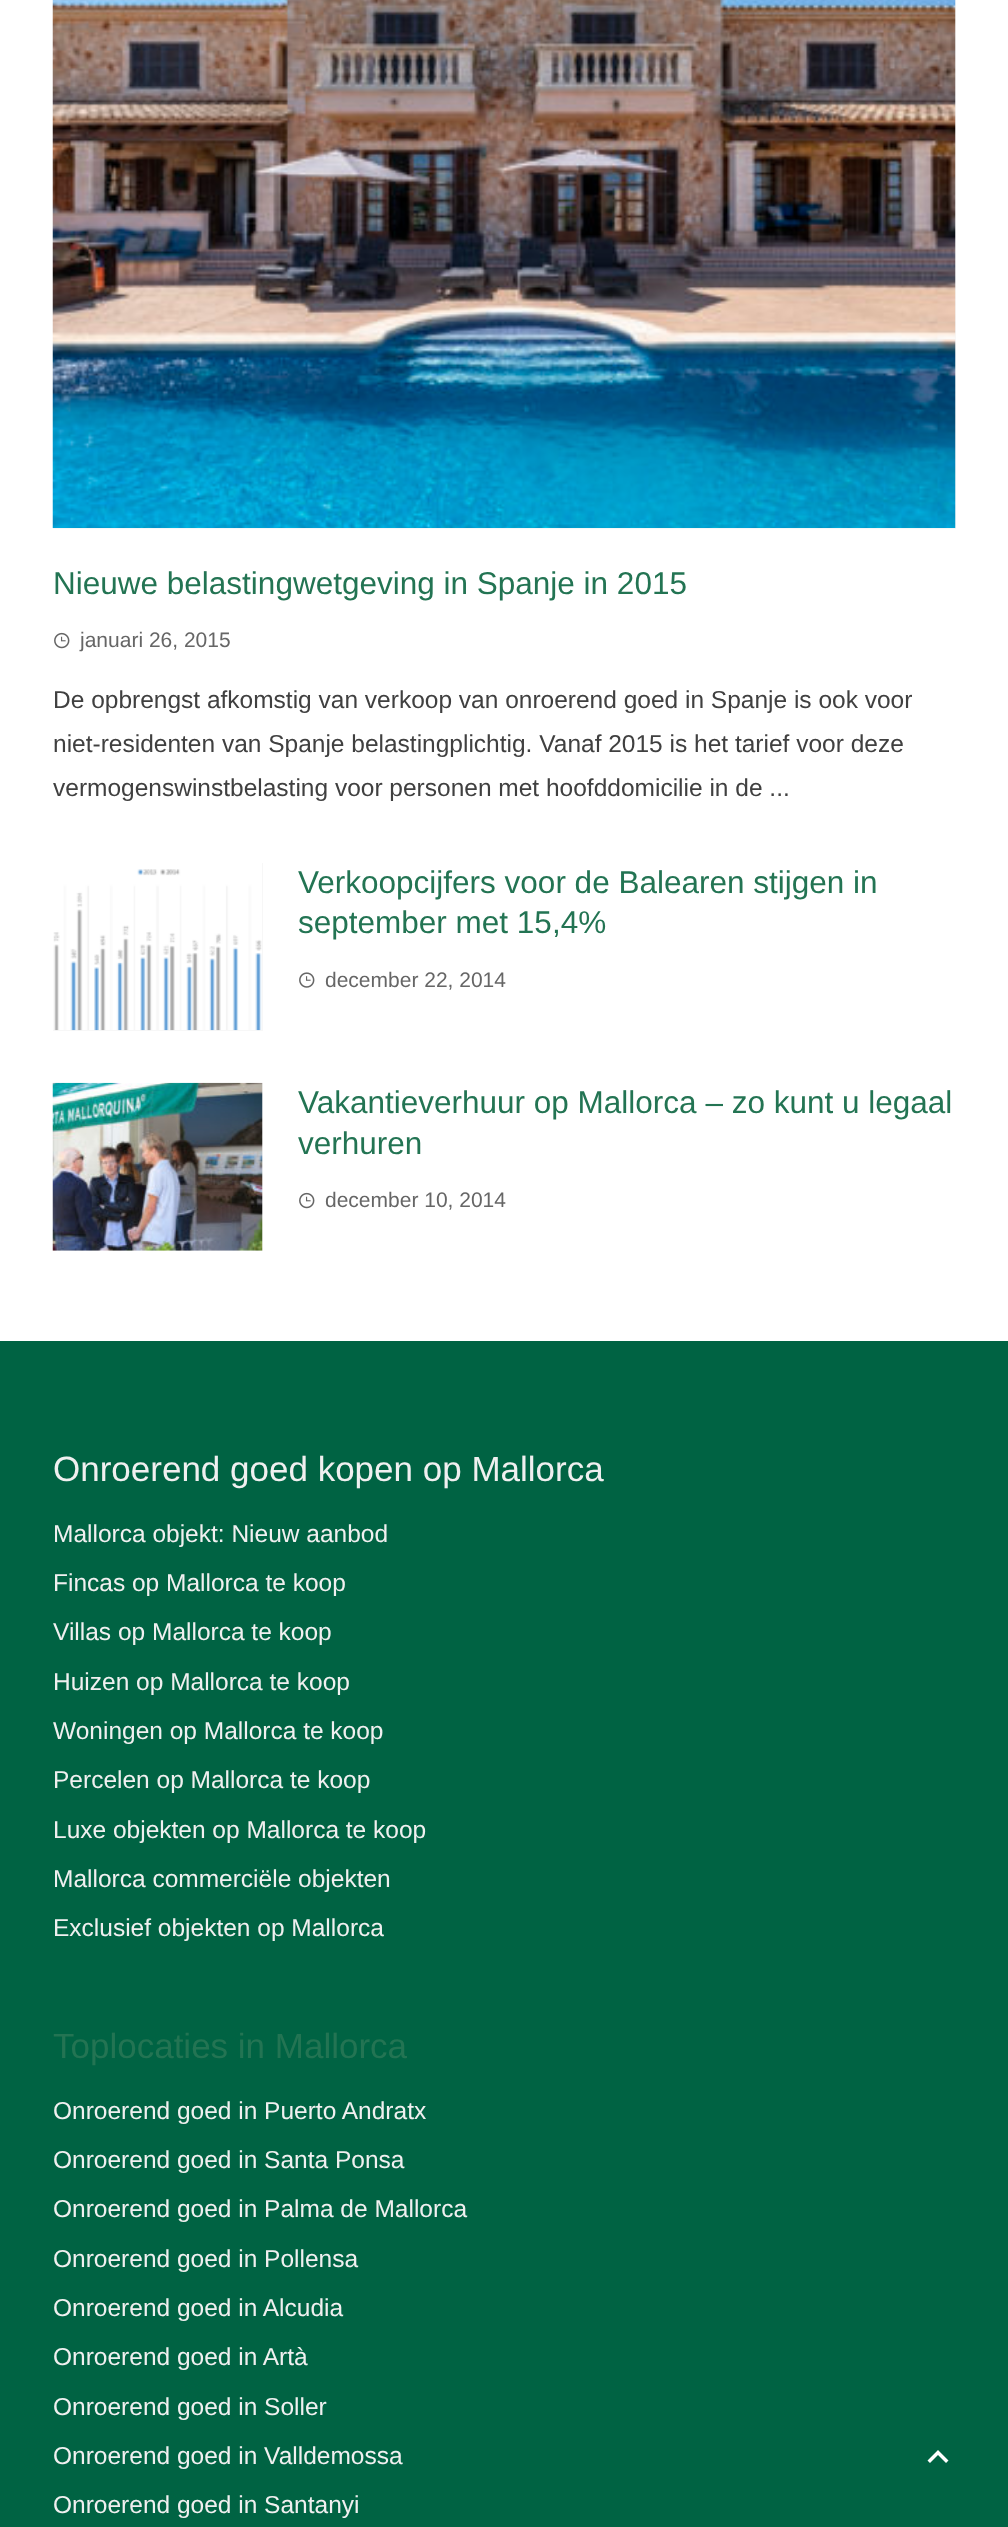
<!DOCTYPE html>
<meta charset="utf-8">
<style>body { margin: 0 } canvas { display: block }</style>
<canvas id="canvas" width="1008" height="2527"></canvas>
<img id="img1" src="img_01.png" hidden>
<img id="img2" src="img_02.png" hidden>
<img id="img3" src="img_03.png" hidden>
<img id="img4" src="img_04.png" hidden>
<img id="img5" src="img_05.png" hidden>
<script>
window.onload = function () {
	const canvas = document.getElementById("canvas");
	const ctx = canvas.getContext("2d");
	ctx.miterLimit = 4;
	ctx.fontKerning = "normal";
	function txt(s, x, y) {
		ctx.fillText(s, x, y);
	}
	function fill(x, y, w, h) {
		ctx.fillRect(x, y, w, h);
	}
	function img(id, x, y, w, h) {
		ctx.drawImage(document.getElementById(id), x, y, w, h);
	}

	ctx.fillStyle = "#FFFFFF";
	fill(0, 0, 1008, 2527);
	ctx.fillStyle = "#F7F7F7";
	fill(53, 0, 903, 529);
	img("img1", 52, 0, 904, 528);
	img("img2", 54, 632, 16, 17);
	fill(53, 863, 210, 168);
	img("img3", 53, 863, 209, 168);
	img("img4", 299, 972, 16, 16);
	fill(53, 1083, 210, 168);
	img("img5", 52, 1082, 211, 169);
	img("img2", 299, 1192, 16, 17);
	ctx.fillStyle = "#006343";
	fill(0, 1341, 1008, 1186);
	ctx.fillStyle = "#FFFFFF";
	ctx.beginPath();
	ctx.moveTo(930, 2463);
	ctx.lineTo(938, 2455);
	ctx.lineTo(946, 2463);
	ctx.lineTo(948.5, 2460.5);
	ctx.lineTo(938, 2450);
	ctx.lineTo(927.5, 2460.5);
	ctx.closePath();
	ctx.fill();
	ctx.font = "31.5px Liberation Sans";
	ctx.fillStyle = "#237453";
	txt("Nieuwe belastingwetgeving in Spanje in 2015", 53, 594);
	ctx.font = "21px Liberation Sans";
	ctx.fillStyle = "#666666";
	txt("januari 26, 2015", 80, 647);
	ctx.font = "24.5px Liberation Sans";
	ctx.fillStyle = "#404040";
	txt("De opbrengst afkomstig van verkoop van onroerend goed in Spanje is ook voor", 53, 708);
	txt("niet-residenten van Spanje belastingplichtig. Vanaf 2015 is het tarief voor deze", 53, 752);
	txt("vermogenswinstbelasting voor personen met hoofddomicilie in de ...", 53, 796);
	ctx.font = "31.5px Liberation Sans";
	ctx.fillStyle = "#237453";
	txt("Verkoopcijfers voor de Balearen stijgen in", 298, 893);
	txt("september met 15,4%", 298, 933);
	ctx.font = "21px Liberation Sans";
	ctx.fillStyle = "#666666";
	txt("december 22, 2014", 325, 987);
	ctx.font = "31.5px Liberation Sans";
	ctx.fillStyle = "#237453";
	txt("Vakantieverhuur op Mallorca – zo kunt u legaal", 298, 1113);
	txt("verhuren", 298, 1154);
	ctx.font = "21px Liberation Sans";
	ctx.fillStyle = "#666666";
	txt("december 10, 2014", 325, 1207);
	ctx.font = "35px Liberation Sans";
	ctx.fillStyle = "#F0F0F0";
	txt("Onroerend goed kopen op Mallorca", 53, 1481);
	ctx.font = "24.5px Liberation Sans";
	txt("Mallorca objekt: Nieuw aanbod", 53, 1542);
	txt("Fincas op Mallorca te koop", 53, 1591);
	txt("Villas op Mallorca te koop", 53, 1640);
	txt("Huizen op Mallorca te koop", 53, 1690);
	txt("Woningen op Mallorca te koop", 53, 1739);
	txt("Percelen op Mallorca te koop", 53, 1788);
	txt("Luxe objekten op Mallorca te koop", 53, 1838);
	txt("Mallorca commerciële objekten", 53, 1887);
	txt("Exclusief objekten op Mallorca", 53, 1936);
	ctx.font = "35px Liberation Sans";
	ctx.fillStyle = "#237453";
	txt("Toplocaties in Mallorca", 53, 2058);
	ctx.font = "24.5px Liberation Sans";
	ctx.fillStyle = "#F0F0F0";
	txt("Onroerend goed in Puerto Andratx", 53, 2119);
	txt("Onroerend goed in Santa Ponsa", 53, 2168);
	txt("Onroerend goed in Palma de Mallorca", 53, 2217);
	txt("Onroerend goed in Pollensa", 53, 2267);
	txt("Onroerend goed in Alcudia", 53, 2316);
	txt("Onroerend goed in Artà", 53, 2365);
	txt("Onroerend goed in Soller", 53, 2415);
	txt("Onroerend goed in Valldemossa", 53, 2464);
	txt("Onroerend goed in Santanyi", 53, 2513);
};
</script>
